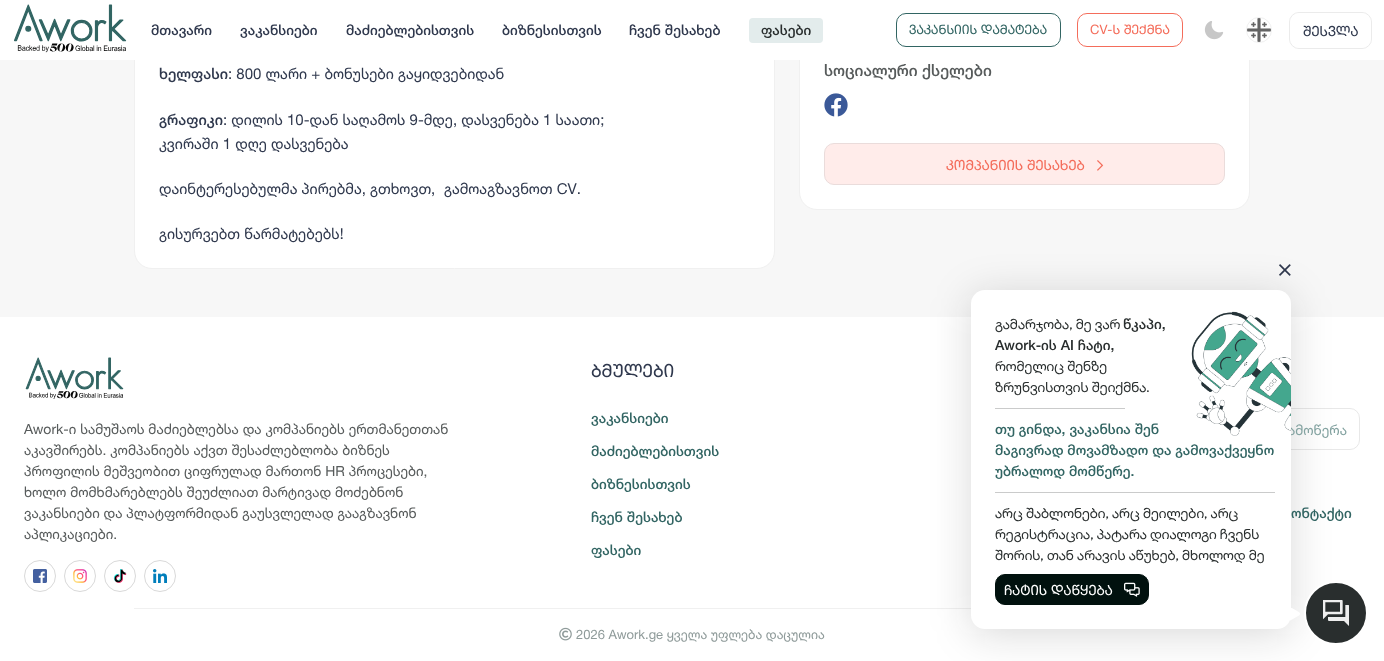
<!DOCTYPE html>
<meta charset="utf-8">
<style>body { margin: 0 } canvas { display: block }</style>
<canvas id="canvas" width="1384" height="661"></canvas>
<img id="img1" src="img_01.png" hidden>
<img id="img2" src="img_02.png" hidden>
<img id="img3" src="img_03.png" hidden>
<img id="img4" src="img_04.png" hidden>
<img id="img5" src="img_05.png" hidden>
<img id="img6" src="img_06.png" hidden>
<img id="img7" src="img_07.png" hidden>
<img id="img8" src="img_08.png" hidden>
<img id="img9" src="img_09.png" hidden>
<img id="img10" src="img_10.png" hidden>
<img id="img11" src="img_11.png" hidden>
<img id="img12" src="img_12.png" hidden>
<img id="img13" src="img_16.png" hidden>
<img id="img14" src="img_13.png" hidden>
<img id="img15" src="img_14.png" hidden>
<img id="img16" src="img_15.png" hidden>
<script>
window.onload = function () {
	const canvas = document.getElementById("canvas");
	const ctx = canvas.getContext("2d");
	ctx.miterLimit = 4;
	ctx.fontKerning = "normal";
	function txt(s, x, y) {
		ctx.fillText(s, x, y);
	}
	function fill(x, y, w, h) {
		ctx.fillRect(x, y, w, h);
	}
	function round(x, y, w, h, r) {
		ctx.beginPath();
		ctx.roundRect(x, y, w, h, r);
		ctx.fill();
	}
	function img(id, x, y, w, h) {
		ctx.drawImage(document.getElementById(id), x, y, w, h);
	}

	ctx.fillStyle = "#F7F7F7";
	fill(0, 0, 1384, 661);
	ctx.fillStyle = "#FFFFFF";
	ctx.beginPath();
	ctx.roundRect(134.5, -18.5, 640, 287, 17.5);
	ctx.fill();
	ctx.strokeStyle = "#F0F0F0";
	ctx.stroke();
	ctx.beginPath();
	ctx.roundRect(799.5, -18.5, 450, 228, 17.5);
	ctx.fill();
	ctx.stroke();
	fill(0, 0, 1384, 60);
	img("img1", 14, 4, 113, 49);
	ctx.fillStyle = "#E3ECEC";
	round(749, 18, 74, 25, 4);
	ctx.beginPath();
	ctx.roundRect(896.5, 13.5, 164, 33, 9.5);
	ctx.strokeStyle = "#326563";
	ctx.stroke();
	ctx.beginPath();
	ctx.roundRect(1077.5, 13.5, 105, 33, 9.5);
	ctx.strokeStyle = "#F46D5B";
	ctx.stroke();
	img("img2", 1204, 21, 20, 19);
	ctx.beginPath();
	ctx.arc(1259, 30, 12.5, 0, Math.PI * 2);
	ctx.strokeStyle = "#F0F0F0";
	ctx.stroke();
	img("img3", 1247, 18, 24, 24);
	ctx.beginPath();
	ctx.roundRect(1289.5, 12.5, 82, 36, 9.5);
	ctx.strokeStyle = "#EBEBEB";
	ctx.stroke();
	ctx.beginPath();
	ctx.roundRect(1290.5, 13.5, 80, 34, 9.5);
	ctx.strokeStyle = "#FFFFFF";
	ctx.stroke();
	img("img4", 824, 93, 24, 24);
	ctx.fillStyle = "#FFECEA";
	ctx.beginPath();
	ctx.roundRect(824.5, 143.5, 400, 41, 9.5);
	ctx.fill();
	ctx.strokeStyle = "#EADCDB";
	ctx.stroke();
	img("img5", 1097, 160, 7, 11);
	ctx.fillStyle = "#FFFFFF";
	fill(0, 317, 1384, 344);
	img("img6", 25, 357, 99, 42);
	ctx.beginPath();
	ctx.arc(40, 576, 15.5, 0, Math.PI * 2);
	ctx.strokeStyle = "#D9D9D9";
	ctx.stroke();
	img("img7", 33, 569, 14, 14);
	ctx.beginPath();
	ctx.arc(80, 576, 15.5, 0, Math.PI * 2);
	ctx.stroke();
	img("img8", 73, 569, 14, 14);
	ctx.beginPath();
	ctx.arc(120, 576, 15.5, 0, Math.PI * 2);
	ctx.stroke();
	img("img9", 113, 569, 14, 14);
	ctx.beginPath();
	ctx.arc(160, 576, 15.5, 0, Math.PI * 2);
	ctx.stroke();
	img("img10", 153, 569, 14, 14);
	ctx.beginPath();
	ctx.roundRect(1268.5, 408.5, 91, 41, [0, 9.5, 9.5, 0]);
	ctx.strokeStyle = "rgba(217, 217, 217, 0.6)";
	ctx.stroke();
	ctx.fillStyle = "#F0F0F0";
	fill(134, 608, 837, 1);
	img("img11", 559, 627, 13, 14);
	img("img12", 1279, 264, 12, 12);
	ctx.fillStyle = "rgba(15, 15, 15, 0.16)";
	ctx.filter = "blur(20px)";
	ctx.beginPath();
	ctx.roundRect(971, 295, 320, 339, 14);
	ctx.fill();
	ctx.filter = "none";
	ctx.fillStyle = "#292E2E";
	ctx.beginPath();
	ctx.arc(1336, 613, 31, 0, Math.PI * 2);
	ctx.fill();
	ctx.strokeStyle = "#FFFFFF";
	ctx.lineWidth = 2;
	ctx.stroke();
	img("img13", 1323, 600, 26, 26);
	ctx.font = "500 14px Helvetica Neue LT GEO";
	ctx.fillStyle = "#2F384D";
	txt("მთავარი", 151, 35);
	txt("ვაკანსიები", 240, 35);
	txt("მაძიებლებისთვის", 346, 35);
	txt("ბიზნესისთვის", 502, 35);
	txt("ჩვენ შესახებ", 629, 35);
	ctx.fillStyle = "#292E2E";
	txt("ფასები", 761, 35);
	ctx.font = "13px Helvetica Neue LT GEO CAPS";
	ctx.fillStyle = "#326563";
	txt("ვაკანსიის დამატება", 909, 34);
	ctx.fillStyle = "#F46D5B";
	txt("CV-ს შექმნა", 1090, 34);
	ctx.font = "14px Helvetica Neue LT GEO CAPS";
	ctx.fillStyle = "#2F384D";
	txt("შესვლა", 1303, 36);
	ctx.font = "500 15px Helvetica Neue LT GEO";
	txt("ხელფასი", 159, 79);
	ctx.font = "15px Helvetica Neue LT GEO";
	txt(": 800 ლარი + ბონუსები გაყიდვებიდან", 228, 79);
	ctx.font = "500 15px Helvetica Neue LT GEO";
	txt("გრაფიკი", 159, 125);
	ctx.font = "15px Helvetica Neue LT GEO";
	txt(": დილის 10-დან საღამოს 9-მდე, დასვენება 1 საათი;", 223, 125);
	txt("კვირაში 1 დღე დასვენება", 159, 149);
	txt("დაინტერესებულმა პირებმა, გთხოვთ,", 159, 194);
	txt("გამოაგზავნოთ CV.", 444, 194);
	txt("გისურვებთ წარმატებებს!", 159, 239);
	ctx.font = "500 16px Helvetica Neue LT GEO";
	ctx.fillStyle = "#575B5B";
	txt("სოციალური ქსელები", 824, 76);
	ctx.font = "14px Helvetica Neue LT GEO CAPS";
	ctx.fillStyle = "#F46D5B";
	txt("კომპანიის შესახებ", 946, 170);
	ctx.font = "14px Helvetica Neue LT GEO";
	ctx.fillStyle = "#575B5B";
	txt("Awork-ი სამუშაოს მაძიებლებსა და კომპანიებს ერთმანეთთან", 24, 434);
	txt("აკავშირებს. კომპანიებს აქვთ შესაძლებლობა ბიზნეს", 24, 455);
	txt("პროფილის მეშვეობით ციფრულად მართონ HR პროცესები,", 24, 476);
	txt("ხოლო მომხმარებლებს შეუძლიათ მარტივად მოძებნონ", 24, 497);
	txt("ვაკანსიები და პლატფორმიდან გაუსვლელად გააგზავნონ", 24, 518);
	txt("აპლიკაციები.", 24, 539);
	ctx.font = "18px Helvetica Neue LT GEO CAPS";
	ctx.fillStyle = "#2F384D";
	txt("ბმულები", 591, 377);
	ctx.font = "500 14px Helvetica Neue LT GEO";
	ctx.fillStyle = "#326563";
	txt("ვაკანსიები", 591, 423);
	txt("მაძიებლებისთვის", 591, 456);
	txt("ბიზნესისთვის", 591, 489);
	txt("ჩვენ შესახებ", 591, 522);
	txt("ფასები", 591, 555);
	ctx.font = "14px Helvetica Neue LT GEO";
	ctx.fillStyle = "#84A3A1";
	txt("ამოწერა", 1288, 435);
	ctx.font = "500 14px Helvetica Neue LT GEO";
	ctx.fillStyle = "#326563";
	txt("ონტაქტი", 1291, 518);
	ctx.font = "13px Helvetica Neue LT GEO";
	ctx.fillStyle = "#8F9B9A";
	txt("2026 Awork.ge ყველა უფლება დაცულია", 576, 639);
	ctx.fillStyle = "#FFFFFF";
	round(971, 290, 320, 339, 14);
	ctx.font = "14px Google Sans";
	ctx.fillStyle = "#292E2E";
	txt("გამარჯობა, მე ვარ", 995, 329);
	ctx.font = "500 14px Helvetica Neue LT GEO";
	txt("წკაპი,", 1123, 329);
	img("img14", 1191, 311, 100, 125);
	txt("Awork-ის AI ჩატი,", 995, 350);
	ctx.font = "14px Google Sans";
	txt("რომელიც შენზე", 995, 371);
	txt("ზრუნვისთვის შეიქმნა.", 995, 392);
	ctx.fillStyle = "#CACBCB";
	fill(995, 408, 130, 1);
	ctx.font = "500 14px Helvetica Neue LT GEO";
	ctx.fillStyle = "#326563";
	txt("თუ გინდა, ვაკანსია შენ", 995, 434);
	txt("მაგივრად მოვამზადო და გამოვაქვეყნო", 995, 455);
	txt("უბრალოდ მომწერე.", 995, 476);
	ctx.fillStyle = "#CACBCB";
	fill(995, 492, 280, 1);
	ctx.font = "14px Google Sans";
	ctx.fillStyle = "#292E2E";
	txt("არც შაბლონები, არც მეილები, არც", 995, 518);
	txt("რეგისტრაცია, პატარა დიალოგი ჩვენს", 995, 539);
	txt("შორის, თან არავის აწუხებ, მხოლოდ მე", 995, 560);
	ctx.fillStyle = "#01110E";
	ctx.beginPath();
	ctx.roundRect(995.5, 574.5, 153, 30, 9.5);
	ctx.fill();
	ctx.strokeStyle = "#01110E";
	ctx.lineWidth = 1;
	ctx.stroke();
	ctx.font = "14px Helvetica Neue LT GEO CAPS";
	ctx.fillStyle = "#FFFFFF";
	txt("ჩატის დაწყება", 1004, 595);
	img("img15", 1124, 582, 16, 15);
	img("img16", 1290, 608, 10, 13);
};
</script>
